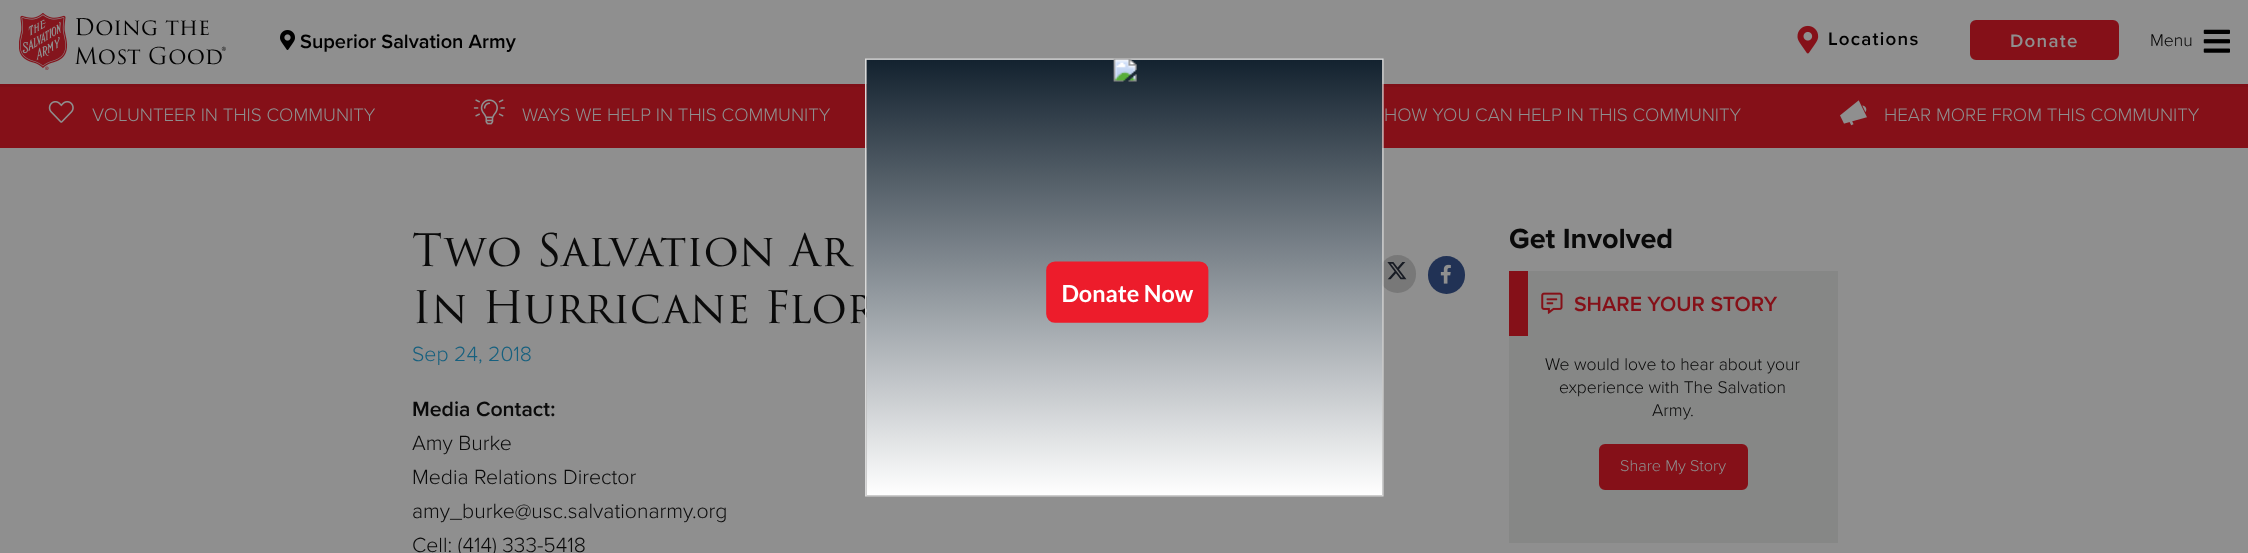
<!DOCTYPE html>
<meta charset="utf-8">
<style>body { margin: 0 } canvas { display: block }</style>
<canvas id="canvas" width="2248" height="553"></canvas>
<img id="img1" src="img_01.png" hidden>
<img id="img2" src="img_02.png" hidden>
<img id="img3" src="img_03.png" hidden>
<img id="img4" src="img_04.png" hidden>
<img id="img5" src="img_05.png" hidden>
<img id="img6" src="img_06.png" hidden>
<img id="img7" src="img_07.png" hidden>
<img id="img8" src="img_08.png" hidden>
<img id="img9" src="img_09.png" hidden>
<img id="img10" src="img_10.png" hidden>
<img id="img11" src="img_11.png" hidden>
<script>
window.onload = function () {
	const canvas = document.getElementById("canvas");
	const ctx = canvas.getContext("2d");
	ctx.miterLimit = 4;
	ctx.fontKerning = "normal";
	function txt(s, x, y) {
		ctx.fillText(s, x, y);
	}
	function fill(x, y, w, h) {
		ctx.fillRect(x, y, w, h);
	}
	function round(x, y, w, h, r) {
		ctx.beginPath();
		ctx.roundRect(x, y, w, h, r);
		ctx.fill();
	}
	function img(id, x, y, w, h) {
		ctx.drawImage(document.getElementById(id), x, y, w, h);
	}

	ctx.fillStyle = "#8F8F8F";
	fill(0, 0, 2248, 553);
	img("img1", 19, 13, 49, 57);
	img("img2", 280, 30, 15, 20);
	img("img3", 1797, 25, 22, 29);
	ctx.fillStyle = "#851018";
	ctx.beginPath();
	ctx.roundRect(1971.5, 21.5, 146, 37, 4.5);
	ctx.fill();
	ctx.strokeStyle = "#851018";
	ctx.lineWidth = 3;
	ctx.stroke();
	img("img4", 2203, 29, 27, 24);
	ctx.fillStyle = "#7E0F17";
	fill(0, 84, 2248, 3);
	ctx.fillStyle = "#851018";
	fill(0, 87, 2248, 61);
	img("img5", 48, 100, 26, 23);
	img("img6", 473, 99, 32, 26);
	img("img7", 1840, 100, 27, 26);
	ctx.fillStyle = "#787878";
	round(1379, 255, 37, 38, 18.5);
	img("img8", 1387, 262, 20, 18);
	ctx.fillStyle = "#213255";
	round(1428, 256, 37, 38, 18.5);
	img("img9", 1440, 264, 11, 20);
	ctx.fillStyle = "#868786";
	fill(1509, 271, 329, 272);
	ctx.fillStyle = "#851018";
	fill(1509, 271, 19, 65);
	img("img10", 1541, 292, 22, 22);
	ctx.beginPath();
	ctx.roundRect(1600.5, 445.5, 146, 43, 4.5);
	ctx.fill();
	ctx.stroke();
	ctx.font = "22.5px 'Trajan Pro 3'";
	ctx.fillStyle = "#000000";
	txt("Doing the", 74, 35);
	txt("Most Good®", 74, 64);
	ctx.font = "600 20px Proxima Nova";
	txt("Superior Salvation Army", 300, 48);
	ctx.letterSpacing = "1.25px";
	ctx.font = "600 18.75px Proxima Nova";
	txt("Locations", 1828, 45);
	ctx.fillStyle = "#8F8F8F";
	txt("Donate", 2010, 47);
	ctx.letterSpacing = "0px";
	ctx.font = "300 17.5px Proxima Nova";
	ctx.fillStyle = "#000000";
	txt("Menu", 2150, 46);
	ctx.font = "300 18.75px Proxima Nova";
	ctx.fillStyle = "#8F8F8F";
	txt("VOLUNTEER IN THIS COMMUNITY", 92, 121);
	txt("WAYS WE HELP IN THIS COMMUNITY", 522, 121);
	txt("HOW YOU CAN HELP IN THIS COMMUNITY", 1384, 121);
	txt("HEAR MORE FROM THIS COMMUNITY", 1884, 121);
	ctx.font = "43.75px 'Trajan Pro 3'";
	ctx.fillStyle = "#0A0A0A";
	txt("Two Salvation Ar", 412, 266);
	txt("In Hurricane Flor", 412, 323);
	ctx.font = "300 21.25px Proxima Nova";
	ctx.fillStyle = "#16607F";
	txt("Sep 24, 2018", 412, 361);
	ctx.font = "600 21.25px Proxima Nova";
	ctx.fillStyle = "#0A0A0A";
	txt("Media Contact:", 412, 416);
	ctx.font = "300 21.25px Proxima Nova";
	txt("Amy Burke", 412, 450);
	txt("Media Relations Director", 412, 484);
	txt("amy_burke@usc.salvationarmy.org", 412, 518);
	txt("Cell: (414) 333-5418", 412, 552);
	ctx.font = "bold 28.75px Proxima Nova";
	txt("Get Involved", 1509, 248);
	ctx.font = "600 21.25px Proxima Nova";
	ctx.fillStyle = "#851018";
	txt("SHARE YOUR STORY", 1574, 311);
	ctx.font = "300 17.5px Proxima Nova";
	ctx.fillStyle = "#0A0A0A";
	txt("We would love to hear about your", 1545, 370);
	txt("experience with The Salvation", 1559, 393);
	txt("Army.", 1652, 416);
	ctx.font = "300 16.25px Proxima Nova";
	ctx.fillStyle = "#8F8F8F";
	txt("Share My Story", 1620, 471);
	img("img11", 865, 58, 519, 439);
};
</script>
